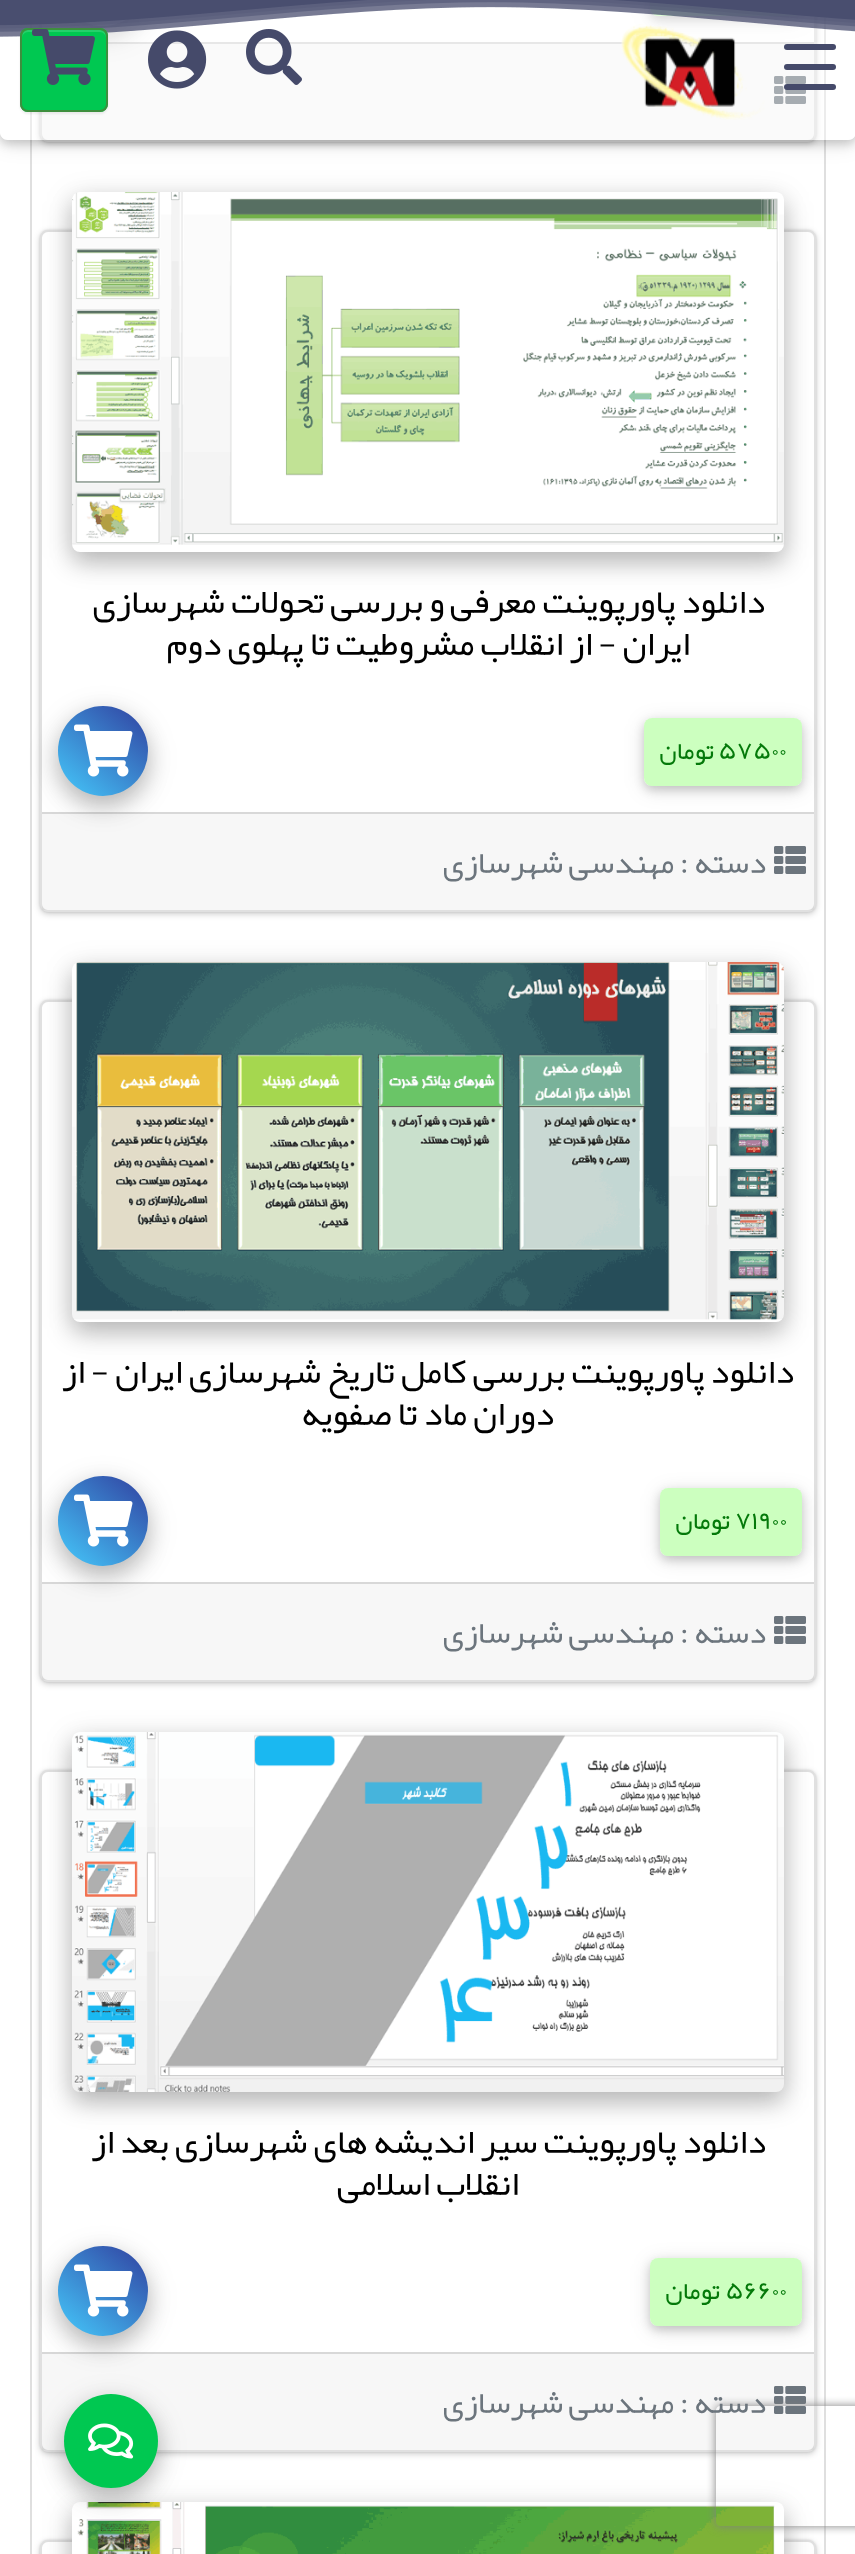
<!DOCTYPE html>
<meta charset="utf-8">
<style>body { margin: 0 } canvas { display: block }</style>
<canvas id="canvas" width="855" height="2554"></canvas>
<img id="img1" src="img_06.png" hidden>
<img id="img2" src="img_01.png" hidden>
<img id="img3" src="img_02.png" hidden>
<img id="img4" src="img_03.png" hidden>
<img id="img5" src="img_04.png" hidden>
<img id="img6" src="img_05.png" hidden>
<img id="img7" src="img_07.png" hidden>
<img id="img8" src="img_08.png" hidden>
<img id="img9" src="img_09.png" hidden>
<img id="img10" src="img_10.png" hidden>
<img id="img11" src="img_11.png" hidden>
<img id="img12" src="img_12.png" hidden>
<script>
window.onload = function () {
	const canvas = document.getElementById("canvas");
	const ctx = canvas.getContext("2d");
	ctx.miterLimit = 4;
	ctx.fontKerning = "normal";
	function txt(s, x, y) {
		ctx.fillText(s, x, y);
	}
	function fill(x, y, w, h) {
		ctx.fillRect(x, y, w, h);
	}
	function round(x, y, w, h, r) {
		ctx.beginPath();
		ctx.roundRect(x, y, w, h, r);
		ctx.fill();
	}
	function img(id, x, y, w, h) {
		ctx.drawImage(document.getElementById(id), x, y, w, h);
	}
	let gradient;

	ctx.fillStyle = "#FFFFFF";
	fill(0, 0, 855, 2554);
	ctx.strokeStyle = "#DFDFDF";
	ctx.lineWidth = 2;
	ctx.strokeRect(31, -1, 794, 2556);
	ctx.fillStyle = "rgba(0, 0, 0, 0.2)";
	ctx.filter = "blur(3px)";
	ctx.beginPath();
	ctx.roundRect(40, -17, 776, 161, 8);
	ctx.fill();
	ctx.filter = "none";
	ctx.fillStyle = "rgba(0, 0, 0, 0.12)";
	ctx.filter = "blur(1px)";
	ctx.beginPath();
	ctx.roundRect(40, -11, 776, 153, 8);
	ctx.fill();
	ctx.filter = "none";
	ctx.fillStyle = "#FFFFFF";
	round(40, -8, 776, 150, 8);
	ctx.beginPath();
	ctx.roundRect(41, -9, 774, 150, 7);
	ctx.strokeStyle = "rgba(0, 0, 0, 0.12)";
	ctx.stroke();
	ctx.save();
	ctx.beginPath();
	ctx.moveTo(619, 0);
	ctx.lineTo(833, 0);
	ctx.lineTo(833, 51);
	ctx.lineTo(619, 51);
	ctx.closePath();
	ctx.moveTo(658, -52);
	ctx.lineTo(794, -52);
	ctx.bezierCurveTo(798.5, -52, 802, -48.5, 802, -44);
	ctx.lineTo(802, 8);
	ctx.bezierCurveTo(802, 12.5, 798.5, 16, 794, 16);
	ctx.lineTo(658, 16);
	ctx.bezierCurveTo(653.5, 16, 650, 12.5, 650, 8);
	ctx.lineTo(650, -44);
	ctx.bezierCurveTo(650, -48.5, 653.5, -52, 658, -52);
	ctx.closePath();
	ctx.clip("evenodd");
	ctx.fillStyle = "rgba(0, 0, 0, 0.12)";
	ctx.filter = "blur(10px)";
	ctx.beginPath();
	ctx.roundRect(650, -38, 152, 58, 8);
	ctx.fill();
	ctx.filter = "none";
	ctx.restore();
	ctx.save();
	ctx.beginPath();
	ctx.moveTo(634, 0);
	ctx.lineTo(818, 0);
	ctx.lineTo(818, 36);
	ctx.lineTo(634, 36);
	ctx.closePath();
	ctx.moveTo(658, -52);
	ctx.lineTo(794, -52);
	ctx.bezierCurveTo(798.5, -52, 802, -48.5, 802, -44);
	ctx.lineTo(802, 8);
	ctx.bezierCurveTo(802, 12.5, 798.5, 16, 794, 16);
	ctx.lineTo(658, 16);
	ctx.bezierCurveTo(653.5, 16, 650, 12.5, 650, 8);
	ctx.lineTo(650, -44);
	ctx.bezierCurveTo(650, -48.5, 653.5, -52, 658, -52);
	ctx.closePath();
	ctx.clip("evenodd");
	ctx.fillStyle = "rgba(0, 0, 0, 0.16)";
	ctx.filter = "blur(5px)";
	ctx.beginPath();
	ctx.roundRect(650, -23, 152, 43, 8);
	ctx.fill();
	ctx.filter = "none";
	ctx.restore();
	ctx.fillStyle = "rgba(50, 255, 1, 0.25)";
	round(650, -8, 152, 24, 8);
	ctx.fillStyle = "rgba(0, 0, 0, 0.03)";
	fill(42, 44, 772, 96);
	ctx.fillStyle = "#D8D8D8";
	fill(108, 42, 706, 2);
	img("img1", 774, 76, 32, 28);
	ctx.save();
	ctx.beginPath();
	ctx.moveTo(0, 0);
	ctx.lineTo(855, 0);
	ctx.lineTo(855, 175);
	ctx.lineTo(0, 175);
	ctx.closePath();
	ctx.moveTo(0, 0);
	ctx.lineTo(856, 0);
	ctx.lineTo(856, 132);
	ctx.bezierCurveTo(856, 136.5, 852.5, 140, 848, 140);
	ctx.lineTo(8, 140);
	ctx.bezierCurveTo(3.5, 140, 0, 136.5, 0, 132);
	ctx.closePath();
	ctx.clip("evenodd");
	ctx.fillStyle = "rgba(0, 0, 0, 0.12)";
	ctx.filter = "blur(10px)";
	ctx.beginPath();
	ctx.roundRect(0, 4, 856, 140, 8);
	ctx.fill();
	ctx.filter = "none";
	ctx.restore();
	ctx.save();
	ctx.beginPath();
	ctx.moveTo(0, 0);
	ctx.lineTo(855, 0);
	ctx.lineTo(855, 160);
	ctx.lineTo(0, 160);
	ctx.closePath();
	ctx.moveTo(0, 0);
	ctx.lineTo(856, 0);
	ctx.lineTo(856, 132);
	ctx.bezierCurveTo(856, 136.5, 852.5, 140, 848, 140);
	ctx.lineTo(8, 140);
	ctx.bezierCurveTo(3.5, 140, 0, 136.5, 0, 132);
	ctx.closePath();
	ctx.clip("evenodd");
	ctx.fillStyle = "rgba(0, 0, 0, 0.16)";
	ctx.filter = "blur(5px)";
	ctx.beginPath();
	ctx.roundRect(0, 4, 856, 140, 8);
	ctx.fill();
	ctx.filter = "none";
	ctx.restore();
	ctx.save();
	ctx.beginPath();
	ctx.moveTo(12, 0);
	ctx.lineTo(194, 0);
	ctx.lineTo(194, 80);
	ctx.lineTo(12, 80);
	ctx.closePath();
	ctx.moveTo(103, -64);
	ctx.bezierCurveTo(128, -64, 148, -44, 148, -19);
	ctx.bezierCurveTo(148, 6, 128, 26, 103, 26);
	ctx.bezierCurveTo(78, 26, 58, 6, 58, -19);
	ctx.bezierCurveTo(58, -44, 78, -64, 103, -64);
	ctx.closePath();
	ctx.clip("evenodd");
	ctx.fillStyle = "rgba(0, 0, 0, 0.15)";
	ctx.filter = "blur(15px)";
	ctx.beginPath();
	ctx.roundRect(58, -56, 90, 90, 45);
	ctx.fill();
	ctx.filter = "none";
	ctx.restore();
	ctx.save();
	ctx.beginPath();
	ctx.moveTo(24, 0);
	ctx.lineTo(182, 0);
	ctx.lineTo(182, 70);
	ctx.lineTo(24, 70);
	ctx.closePath();
	ctx.moveTo(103, -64);
	ctx.bezierCurveTo(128, -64, 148, -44, 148, -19);
	ctx.bezierCurveTo(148, 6, 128, 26, 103, 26);
	ctx.bezierCurveTo(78, 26, 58, 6, 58, -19);
	ctx.bezierCurveTo(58, -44, 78, -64, 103, -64);
	ctx.closePath();
	ctx.clip("evenodd");
	ctx.fillStyle = "rgba(0, 0, 0, 0.18)";
	ctx.filter = "blur(11px)";
	ctx.beginPath();
	ctx.roundRect(58, -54, 90, 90, 45);
	ctx.fill();
	ctx.filter = "none";
	ctx.restore();
	ctx.fillStyle = "rgba(255, 255, 255, 0.4)";
	ctx.beginPath();
	ctx.moveTo(0, 0);
	ctx.lineTo(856, 0);
	ctx.lineTo(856, 132);
	ctx.bezierCurveTo(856, 136.5, 852.5, 140, 848, 140);
	ctx.lineTo(8, 140);
	ctx.bezierCurveTo(3.5, 140, 0, 136.5, 0, 132);
	ctx.closePath();
	ctx.fill();
	img("img2", 0, 0, 855, 37);
	ctx.fillStyle = "#454A6A";
	round(784, 44, 52, 6, 3);
	round(784, 64, 52, 6, 3);
	round(784, 84, 52, 6, 3);
	img("img3", 621, 24, 144, 96);
	img("img4", 246, 29, 56, 56);
	img("img5", 148, 30, 59, 59);
	ctx.fillStyle = "rgba(0, 0, 0, 0.07)";
	ctx.filter = "blur(1px)";
	ctx.beginPath();
	ctx.roundRect(20, 30, 88, 84, 8);
	ctx.fill();
	ctx.filter = "none";
	ctx.fillStyle = "#00C851";
	round(20, 28, 88, 84, 8);
	ctx.fillStyle = "#26D06B";
	ctx.beginPath();
	ctx.moveTo(28, 32);
	ctx.lineTo(100, 32);
	ctx.bezierCurveTo(103, 32, 106, 35, 106, 38);
	ctx.bezierCurveTo(106, 27, 97, 30, 88, 30);
	ctx.lineTo(40, 30);
	ctx.bezierCurveTo(31, 30, 22, 27, 22, 38);
	ctx.bezierCurveTo(22, 35, 25, 32, 28, 32);
	ctx.closePath();
	ctx.fill();
	ctx.beginPath();
	ctx.roundRect(21, 29, 86, 82, 7);
	ctx.strokeStyle = "#3E8F3E";
	ctx.stroke();
	img("img6", 32, 29, 63, 56);
	ctx.fillStyle = "rgba(0, 0, 0, 0.2)";
	ctx.filter = "blur(3px)";
	ctx.beginPath();
	ctx.roundRect(40, 232, 776, 682, 8);
	ctx.fill();
	ctx.filter = "none";
	ctx.fillStyle = "rgba(0, 0, 0, 0.12)";
	ctx.filter = "blur(1px)";
	ctx.beginPath();
	ctx.roundRect(40, 230, 776, 682, 8);
	ctx.fill();
	ctx.filter = "none";
	ctx.fillStyle = "#FFFFFF";
	round(40, 230, 776, 682, 8);
	ctx.beginPath();
	ctx.roundRect(41, 231, 774, 680, 7);
	ctx.strokeStyle = "rgba(0, 0, 0, 0.12)";
	ctx.stroke();
	ctx.fillStyle = "rgba(0, 0, 0, 0.15)";
	ctx.filter = "blur(15px)";
	ctx.beginPath();
	ctx.roundRect(72, 200, 712, 360, 8);
	ctx.fill();
	ctx.filter = "none";
	ctx.fillStyle = "rgba(0, 0, 0, 0.18)";
	ctx.filter = "blur(11px)";
	ctx.beginPath();
	ctx.roundRect(72, 202, 712, 360, 8);
	ctx.fill();
	ctx.filter = "none";
	img("img7", 72, 192, 712, 360);
	ctx.fillStyle = "rgba(255, 255, 255, 0.1)";
	round(72, 192, 712, 360, 8);
	ctx.save();
	ctx.beginPath();
	ctx.moveTo(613, 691);
	ctx.lineTo(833, 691);
	ctx.lineTo(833, 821);
	ctx.lineTo(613, 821);
	ctx.closePath();
	ctx.moveTo(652, 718);
	ctx.lineTo(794, 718);
	ctx.bezierCurveTo(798.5, 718, 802, 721.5, 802, 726);
	ctx.lineTo(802, 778);
	ctx.bezierCurveTo(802, 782.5, 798.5, 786, 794, 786);
	ctx.lineTo(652, 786);
	ctx.bezierCurveTo(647.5, 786, 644, 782.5, 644, 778);
	ctx.lineTo(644, 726);
	ctx.bezierCurveTo(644, 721.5, 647.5, 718, 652, 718);
	ctx.closePath();
	ctx.clip("evenodd");
	ctx.fillStyle = "rgba(0, 0, 0, 0.12)";
	ctx.filter = "blur(10px)";
	ctx.beginPath();
	ctx.roundRect(644, 722, 158, 68, 8);
	ctx.fill();
	ctx.filter = "none";
	ctx.restore();
	ctx.save();
	ctx.beginPath();
	ctx.moveTo(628, 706);
	ctx.lineTo(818, 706);
	ctx.lineTo(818, 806);
	ctx.lineTo(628, 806);
	ctx.closePath();
	ctx.moveTo(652, 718);
	ctx.lineTo(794, 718);
	ctx.bezierCurveTo(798.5, 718, 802, 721.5, 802, 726);
	ctx.lineTo(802, 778);
	ctx.bezierCurveTo(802, 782.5, 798.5, 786, 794, 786);
	ctx.lineTo(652, 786);
	ctx.bezierCurveTo(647.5, 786, 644, 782.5, 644, 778);
	ctx.lineTo(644, 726);
	ctx.bezierCurveTo(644, 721.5, 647.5, 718, 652, 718);
	ctx.closePath();
	ctx.clip("evenodd");
	ctx.fillStyle = "rgba(0, 0, 0, 0.16)";
	ctx.filter = "blur(5px)";
	ctx.beginPath();
	ctx.roundRect(644, 722, 158, 68, 8);
	ctx.fill();
	ctx.filter = "none";
	ctx.restore();
	ctx.fillStyle = "rgba(50, 255, 1, 0.25)";
	round(644, 718, 158, 68, 8);
	ctx.fillStyle = "rgba(0, 0, 0, 0.03)";
	fill(42, 814, 772, 96);
	ctx.fillStyle = "#D8D8D8";
	fill(42, 812, 772, 2);
	ctx.fillStyle = "rgba(0, 0, 0, 0.15)";
	ctx.filter = "blur(15px)";
	ctx.beginPath();
	ctx.roundRect(58, 714, 90, 90, 45);
	ctx.fill();
	ctx.filter = "none";
	ctx.fillStyle = "rgba(0, 0, 0, 0.18)";
	ctx.filter = "blur(11px)";
	ctx.beginPath();
	ctx.roundRect(58, 716, 90, 90, 45);
	ctx.fill();
	ctx.filter = "none";
	gradient = ctx.createLinearGradient(62, 800, 144, 702);
	gradient.addColorStop(0, "#45CAFC");
	gradient.addColorStop(1, "#303F9F");
	ctx.fillStyle = gradient;
	ctx.beginPath();
	ctx.arc(103, 751, 45, 0, Math.PI * 2);
	ctx.fill();
	img("img8", 74, 724, 59, 53);
	img("img1", 774, 846, 32, 28);
	ctx.fillStyle = "rgba(0, 0, 0, 0.2)";
	ctx.filter = "blur(3px)";
	ctx.beginPath();
	ctx.roundRect(40, 1002, 776, 682, 8);
	ctx.fill();
	ctx.filter = "none";
	ctx.fillStyle = "rgba(0, 0, 0, 0.12)";
	ctx.filter = "blur(1px)";
	ctx.beginPath();
	ctx.roundRect(40, 1000, 776, 682, 8);
	ctx.fill();
	ctx.filter = "none";
	ctx.fillStyle = "#FFFFFF";
	round(40, 1000, 776, 682, 8);
	ctx.beginPath();
	ctx.roundRect(41, 1001, 774, 680, 7);
	ctx.stroke();
	ctx.fillStyle = "rgba(0, 0, 0, 0.15)";
	ctx.filter = "blur(15px)";
	ctx.beginPath();
	ctx.roundRect(72, 970, 712, 360, 8);
	ctx.fill();
	ctx.filter = "none";
	ctx.fillStyle = "rgba(0, 0, 0, 0.18)";
	ctx.filter = "blur(11px)";
	ctx.beginPath();
	ctx.roundRect(72, 972, 712, 360, 8);
	ctx.fill();
	ctx.filter = "none";
	img("img9", 72, 962, 712, 360);
	ctx.fillStyle = "rgba(255, 255, 255, 0.1)";
	round(72, 962, 712, 360, 8);
	ctx.save();
	ctx.beginPath();
	ctx.moveTo(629, 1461);
	ctx.lineTo(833, 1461);
	ctx.lineTo(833, 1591);
	ctx.lineTo(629, 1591);
	ctx.closePath();
	ctx.moveTo(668, 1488);
	ctx.lineTo(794, 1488);
	ctx.bezierCurveTo(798.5, 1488, 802, 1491.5, 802, 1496);
	ctx.lineTo(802, 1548);
	ctx.bezierCurveTo(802, 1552.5, 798.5, 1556, 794, 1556);
	ctx.lineTo(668, 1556);
	ctx.bezierCurveTo(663.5, 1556, 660, 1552.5, 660, 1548);
	ctx.lineTo(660, 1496);
	ctx.bezierCurveTo(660, 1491.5, 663.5, 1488, 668, 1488);
	ctx.closePath();
	ctx.clip("evenodd");
	ctx.fillStyle = "rgba(0, 0, 0, 0.12)";
	ctx.filter = "blur(10px)";
	ctx.beginPath();
	ctx.roundRect(660, 1492, 142, 68, 8);
	ctx.fill();
	ctx.filter = "none";
	ctx.restore();
	ctx.save();
	ctx.beginPath();
	ctx.moveTo(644, 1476);
	ctx.lineTo(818, 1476);
	ctx.lineTo(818, 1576);
	ctx.lineTo(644, 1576);
	ctx.closePath();
	ctx.moveTo(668, 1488);
	ctx.lineTo(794, 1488);
	ctx.bezierCurveTo(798.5, 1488, 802, 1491.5, 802, 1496);
	ctx.lineTo(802, 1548);
	ctx.bezierCurveTo(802, 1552.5, 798.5, 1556, 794, 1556);
	ctx.lineTo(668, 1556);
	ctx.bezierCurveTo(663.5, 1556, 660, 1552.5, 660, 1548);
	ctx.lineTo(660, 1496);
	ctx.bezierCurveTo(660, 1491.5, 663.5, 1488, 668, 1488);
	ctx.closePath();
	ctx.clip("evenodd");
	ctx.fillStyle = "rgba(0, 0, 0, 0.16)";
	ctx.filter = "blur(5px)";
	ctx.beginPath();
	ctx.roundRect(660, 1492, 142, 68, 8);
	ctx.fill();
	ctx.filter = "none";
	ctx.restore();
	ctx.fillStyle = "rgba(50, 255, 1, 0.25)";
	round(660, 1488, 142, 68, 8);
	ctx.fillStyle = "rgba(0, 0, 0, 0.03)";
	fill(42, 1584, 772, 96);
	ctx.fillStyle = "#D8D8D8";
	fill(42, 1582, 772, 2);
	ctx.fillStyle = "rgba(0, 0, 0, 0.15)";
	ctx.filter = "blur(15px)";
	ctx.beginPath();
	ctx.roundRect(58, 1484, 90, 90, 45);
	ctx.fill();
	ctx.filter = "none";
	ctx.fillStyle = "rgba(0, 0, 0, 0.18)";
	ctx.filter = "blur(11px)";
	ctx.beginPath();
	ctx.roundRect(58, 1486, 90, 90, 45);
	ctx.fill();
	ctx.filter = "none";
	gradient = ctx.createLinearGradient(62, 1570, 144, 1472);
	gradient.addColorStop(0, "#45CAFC");
	gradient.addColorStop(1, "#303F9F");
	ctx.fillStyle = gradient;
	ctx.beginPath();
	ctx.arc(103, 1521, 45, 0, Math.PI * 2);
	ctx.fill();
	img("img8", 74, 1494, 59, 53);
	img("img1", 774, 1616, 32, 28);
	ctx.fillStyle = "rgba(0, 0, 0, 0.2)";
	ctx.filter = "blur(3px)";
	ctx.beginPath();
	ctx.roundRect(40, 1772, 776, 682, 8);
	ctx.fill();
	ctx.filter = "none";
	ctx.fillStyle = "rgba(0, 0, 0, 0.12)";
	ctx.filter = "blur(1px)";
	ctx.beginPath();
	ctx.roundRect(40, 1770, 776, 682, 8);
	ctx.fill();
	ctx.filter = "none";
	ctx.fillStyle = "#FFFFFF";
	round(40, 1770, 776, 682, 8);
	ctx.beginPath();
	ctx.roundRect(41, 1771, 774, 680, 7);
	ctx.stroke();
	ctx.fillStyle = "rgba(0, 0, 0, 0.15)";
	ctx.filter = "blur(15px)";
	ctx.beginPath();
	ctx.roundRect(72, 1740, 712, 360, 8);
	ctx.fill();
	ctx.filter = "none";
	ctx.fillStyle = "rgba(0, 0, 0, 0.18)";
	ctx.filter = "blur(11px)";
	ctx.beginPath();
	ctx.roundRect(72, 1742, 712, 360, 8);
	ctx.fill();
	ctx.filter = "none";
	img("img10", 72, 1732, 712, 360);
	ctx.fillStyle = "rgba(255, 255, 255, 0.1)";
	round(72, 1732, 712, 360, 8);
	ctx.save();
	ctx.beginPath();
	ctx.moveTo(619, 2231);
	ctx.lineTo(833, 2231);
	ctx.lineTo(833, 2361);
	ctx.lineTo(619, 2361);
	ctx.closePath();
	ctx.moveTo(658, 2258);
	ctx.lineTo(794, 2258);
	ctx.bezierCurveTo(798.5, 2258, 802, 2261.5, 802, 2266);
	ctx.lineTo(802, 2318);
	ctx.bezierCurveTo(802, 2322.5, 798.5, 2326, 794, 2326);
	ctx.lineTo(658, 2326);
	ctx.bezierCurveTo(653.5, 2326, 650, 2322.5, 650, 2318);
	ctx.lineTo(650, 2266);
	ctx.bezierCurveTo(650, 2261.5, 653.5, 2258, 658, 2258);
	ctx.closePath();
	ctx.clip("evenodd");
	ctx.fillStyle = "rgba(0, 0, 0, 0.12)";
	ctx.filter = "blur(10px)";
	ctx.beginPath();
	ctx.roundRect(650, 2262, 152, 68, 8);
	ctx.fill();
	ctx.filter = "none";
	ctx.restore();
	ctx.save();
	ctx.beginPath();
	ctx.moveTo(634, 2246);
	ctx.lineTo(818, 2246);
	ctx.lineTo(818, 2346);
	ctx.lineTo(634, 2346);
	ctx.closePath();
	ctx.moveTo(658, 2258);
	ctx.lineTo(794, 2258);
	ctx.bezierCurveTo(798.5, 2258, 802, 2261.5, 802, 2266);
	ctx.lineTo(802, 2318);
	ctx.bezierCurveTo(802, 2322.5, 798.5, 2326, 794, 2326);
	ctx.lineTo(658, 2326);
	ctx.bezierCurveTo(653.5, 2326, 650, 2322.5, 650, 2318);
	ctx.lineTo(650, 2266);
	ctx.bezierCurveTo(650, 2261.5, 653.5, 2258, 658, 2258);
	ctx.closePath();
	ctx.clip("evenodd");
	ctx.fillStyle = "rgba(0, 0, 0, 0.16)";
	ctx.filter = "blur(5px)";
	ctx.beginPath();
	ctx.roundRect(650, 2262, 152, 68, 8);
	ctx.fill();
	ctx.filter = "none";
	ctx.restore();
	ctx.fillStyle = "rgba(50, 255, 1, 0.25)";
	round(650, 2258, 152, 68, 8);
	ctx.fillStyle = "rgba(0, 0, 0, 0.03)";
	fill(42, 2354, 772, 96);
	ctx.fillStyle = "#D8D8D8";
	fill(42, 2352, 772, 2);
	ctx.fillStyle = "rgba(0, 0, 0, 0.15)";
	ctx.filter = "blur(15px)";
	ctx.beginPath();
	ctx.roundRect(58, 2254, 90, 90, 45);
	ctx.fill();
	ctx.filter = "none";
	ctx.fillStyle = "rgba(0, 0, 0, 0.18)";
	ctx.filter = "blur(11px)";
	ctx.beginPath();
	ctx.roundRect(58, 2256, 90, 90, 45);
	ctx.fill();
	ctx.filter = "none";
	gradient = ctx.createLinearGradient(62, 2340, 144, 2242);
	gradient.addColorStop(0, "#45CAFC");
	gradient.addColorStop(1, "#303F9F");
	ctx.fillStyle = gradient;
	ctx.beginPath();
	ctx.arc(103, 2291, 45, 0, Math.PI * 2);
	ctx.fill();
	img("img8", 74, 2264, 59, 53);
	img("img1", 774, 2386, 32, 28);
	ctx.fillStyle = "rgba(0, 0, 0, 0.2)";
	ctx.filter = "blur(3px)";
	ctx.beginPath();
	ctx.roundRect(40, 2542, 776, 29, 8);
	ctx.fill();
	ctx.filter = "none";
	ctx.fillStyle = "rgba(0, 0, 0, 0.12)";
	ctx.filter = "blur(1px)";
	ctx.beginPath();
	ctx.roundRect(40, 2540, 776, 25, 8);
	ctx.fill();
	ctx.filter = "none";
	ctx.fillStyle = "#FFFFFF";
	round(40, 2540, 776, 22, 8);
	ctx.beginPath();
	ctx.roundRect(41, 2541, 774, 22, 7);
	ctx.stroke();
	ctx.fillStyle = "rgba(0, 0, 0, 0.15)";
	ctx.filter = "blur(15px)";
	ctx.beginPath();
	ctx.roundRect(72, 2510, 712, 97, 8);
	ctx.fill();
	ctx.filter = "none";
	ctx.fillStyle = "rgba(0, 0, 0, 0.18)";
	ctx.filter = "blur(11px)";
	ctx.beginPath();
	ctx.roundRect(72, 2512, 712, 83, 8);
	ctx.fill();
	ctx.filter = "none";
	img("img11", 72, 2502, 712, 52);
	ctx.fillStyle = "rgba(255, 255, 255, 0.1)";
	round(72, 2502, 712, 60, 8);
	ctx.save();
	ctx.beginPath();
	ctx.moveTo(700, 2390);
	ctx.lineTo(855, 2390);
	ctx.lineTo(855, 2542);
	ctx.lineTo(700, 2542);
	ctx.closePath();
	ctx.moveTo(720, 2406);
	ctx.lineTo(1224, 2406);
	ctx.bezierCurveTo(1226, 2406, 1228, 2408, 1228, 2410);
	ctx.lineTo(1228, 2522);
	ctx.bezierCurveTo(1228, 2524, 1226, 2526, 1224, 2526);
	ctx.lineTo(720, 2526);
	ctx.bezierCurveTo(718, 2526, 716, 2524, 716, 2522);
	ctx.lineTo(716, 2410);
	ctx.bezierCurveTo(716, 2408, 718, 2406, 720, 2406);
	ctx.closePath();
	ctx.clip("evenodd");
	ctx.fillStyle = "#808080";
	ctx.filter = "blur(5px)";
	ctx.beginPath();
	ctx.roundRect(716, 2406, 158, 120, 4);
	ctx.fill();
	ctx.filter = "none";
	ctx.restore();
	ctx.fillStyle = "rgba(0, 0, 0, 0.15)";
	ctx.filter = "blur(15px)";
	ctx.beginPath();
	ctx.roundRect(64, 2402, 94, 94, 47);
	ctx.fill();
	ctx.filter = "none";
	ctx.fillStyle = "rgba(0, 0, 0, 0.18)";
	ctx.filter = "blur(11px)";
	ctx.beginPath();
	ctx.roundRect(64, 2404, 94, 94, 47);
	ctx.fill();
	ctx.filter = "none";
	ctx.fillStyle = "#00C851";
	ctx.beginPath();
	ctx.arc(111, 2441, 47, 0, Math.PI * 2);
	ctx.fill();
	img("img12", 88, 2423, 46, 36);
	ctx.direction = "rtl";
	ctx.font = "35.2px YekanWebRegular";
	ctx.fillStyle = "#000000";
	txt("دانلود پاورپوینت معرفی و بررسی تحولات شهرسازی", 765, 613);
	txt("ایران - از انقلاب مشروطیت تا پهلوی دوم", 690, 655);
	ctx.direction = "ltr";
	ctx.font = "25.5px YekanWebRegular";
	ctx.fillStyle = "#04790A";
	txt("۵۷۵۰۰", 718, 759);
	ctx.direction = "rtl";
	txt("تومان", 714, 759);
	ctx.font = "32px YekanWebRegular";
	ctx.fillStyle = "#6C757D";
	txt("دسته : مهندسی شهرسازی", 766, 873);
	ctx.font = "35.2px YekanWebRegular";
	ctx.fillStyle = "#000000";
	txt("دانلود پاورپوینت بررسی کامل تاریخ شهرسازی ایران - از", 794, 1383);
	txt("دوران ماد تا صفویه", 554, 1425);
	ctx.direction = "ltr";
	ctx.font = "25.5px YekanWebRegular";
	ctx.fillStyle = "#04790A";
	txt("۷۱۹۰۰", 735, 1529);
	ctx.direction = "rtl";
	txt("تومان", 730, 1529);
	ctx.font = "32px YekanWebRegular";
	ctx.fillStyle = "#6C757D";
	txt("دسته : مهندسی شهرسازی", 766, 1643);
	ctx.font = "35.2px YekanWebRegular";
	ctx.fillStyle = "#000000";
	txt("دانلود پاورپوینت سیر اندیشه های شهرسازی بعد از", 766, 2153);
	txt("انقلاب اسلامی", 519, 2195);
	ctx.direction = "ltr";
	ctx.font = "25.5px YekanWebRegular";
	ctx.fillStyle = "#04790A";
	txt("۵۶۶۰۰", 725, 2299);
	ctx.direction = "rtl";
	txt("تومان", 720, 2299);
	ctx.font = "32px YekanWebRegular";
	ctx.fillStyle = "#6C757D";
	txt("دسته : مهندسی شهرسازی", 766, 2413);
};
</script>
